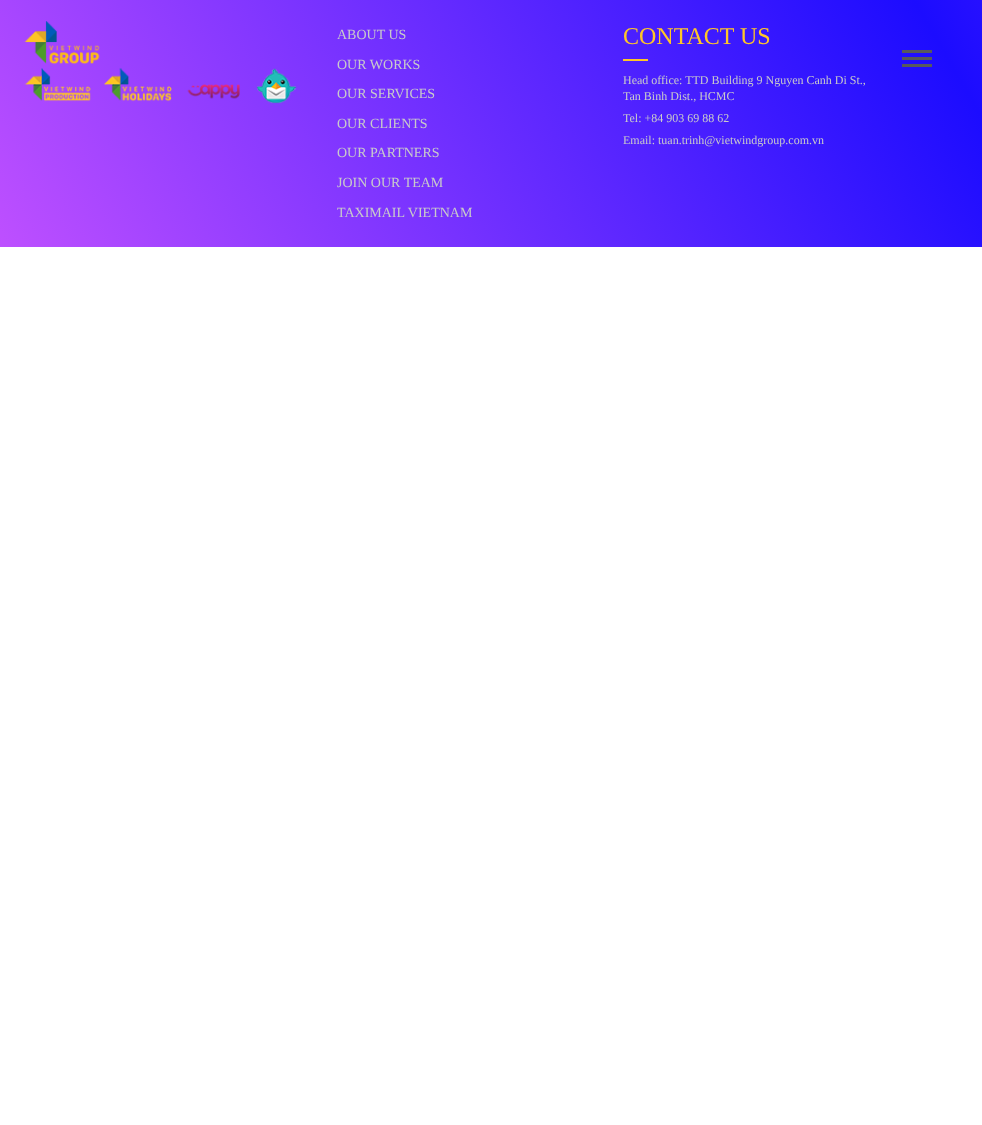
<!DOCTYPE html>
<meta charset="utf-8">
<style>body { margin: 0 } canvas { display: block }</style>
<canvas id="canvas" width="982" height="1125"></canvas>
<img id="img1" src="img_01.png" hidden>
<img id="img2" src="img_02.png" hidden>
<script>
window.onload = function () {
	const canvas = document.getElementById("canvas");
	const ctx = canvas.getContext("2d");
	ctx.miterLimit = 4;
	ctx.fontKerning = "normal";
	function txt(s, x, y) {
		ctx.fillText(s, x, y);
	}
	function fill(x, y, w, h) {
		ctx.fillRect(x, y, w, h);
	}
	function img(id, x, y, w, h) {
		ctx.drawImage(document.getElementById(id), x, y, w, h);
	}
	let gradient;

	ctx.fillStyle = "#FFFFFF";
	fill(0, 0, 982, 1125);
	gradient = ctx.createLinearGradient(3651, -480, 277, 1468);
	gradient.addColorStop(0, "#1C0CFF");
	gradient.addColorStop(0.33, "#FF6BFF");
	gradient.addColorStop(0.67, "#1C0CFF");
	gradient.addColorStop(1, "#FF6BFF");
	ctx.fillStyle = gradient;
	fill(0, 0, 982, 247);
	img("img1", 24, 21, 76, 44);
	img("img2", 24, 68, 273, 36);
	ctx.fillStyle = "#FFC627";
	fill(623, 59, 25, 2);
	ctx.fillStyle = "#58595B";
	fill(902, 57, 30, 3);
	fill(902, 50, 30, 3);
	fill(902, 64, 30, 3);
	ctx.font = "14px Liberation Serif";
	ctx.fillStyle = "#C9CACB";
	txt("ABOUT US", 337, 39);
	txt("OUR WORKS", 337, 69);
	txt("OUR SERVICES", 337, 98);
	txt("OUR CLIENTS", 337, 128);
	txt("OUR PARTNERS", 337, 157);
	txt("JOIN OUR TEAM", 337, 187);
	txt("TAXIMAIL VIETNAM", 337, 217);
	ctx.font = "24px Liberation Serif";
	ctx.fillStyle = "#FFC627";
	txt("CONTACT US", 623, 44);
	ctx.font = "12px Liberation Serif";
	ctx.fillStyle = "#C9CACB";
	txt("Head office: TTD Building 9 Nguyen Canh Di St.,", 623, 84);
	txt("Tan Binh Dist., HCMC", 623, 100);
	txt("Tel: +84 903 69 88 62", 623, 122);
	txt("Email: tuan.trinh@vietwindgroup.com.vn", 623, 144);
};
</script>
